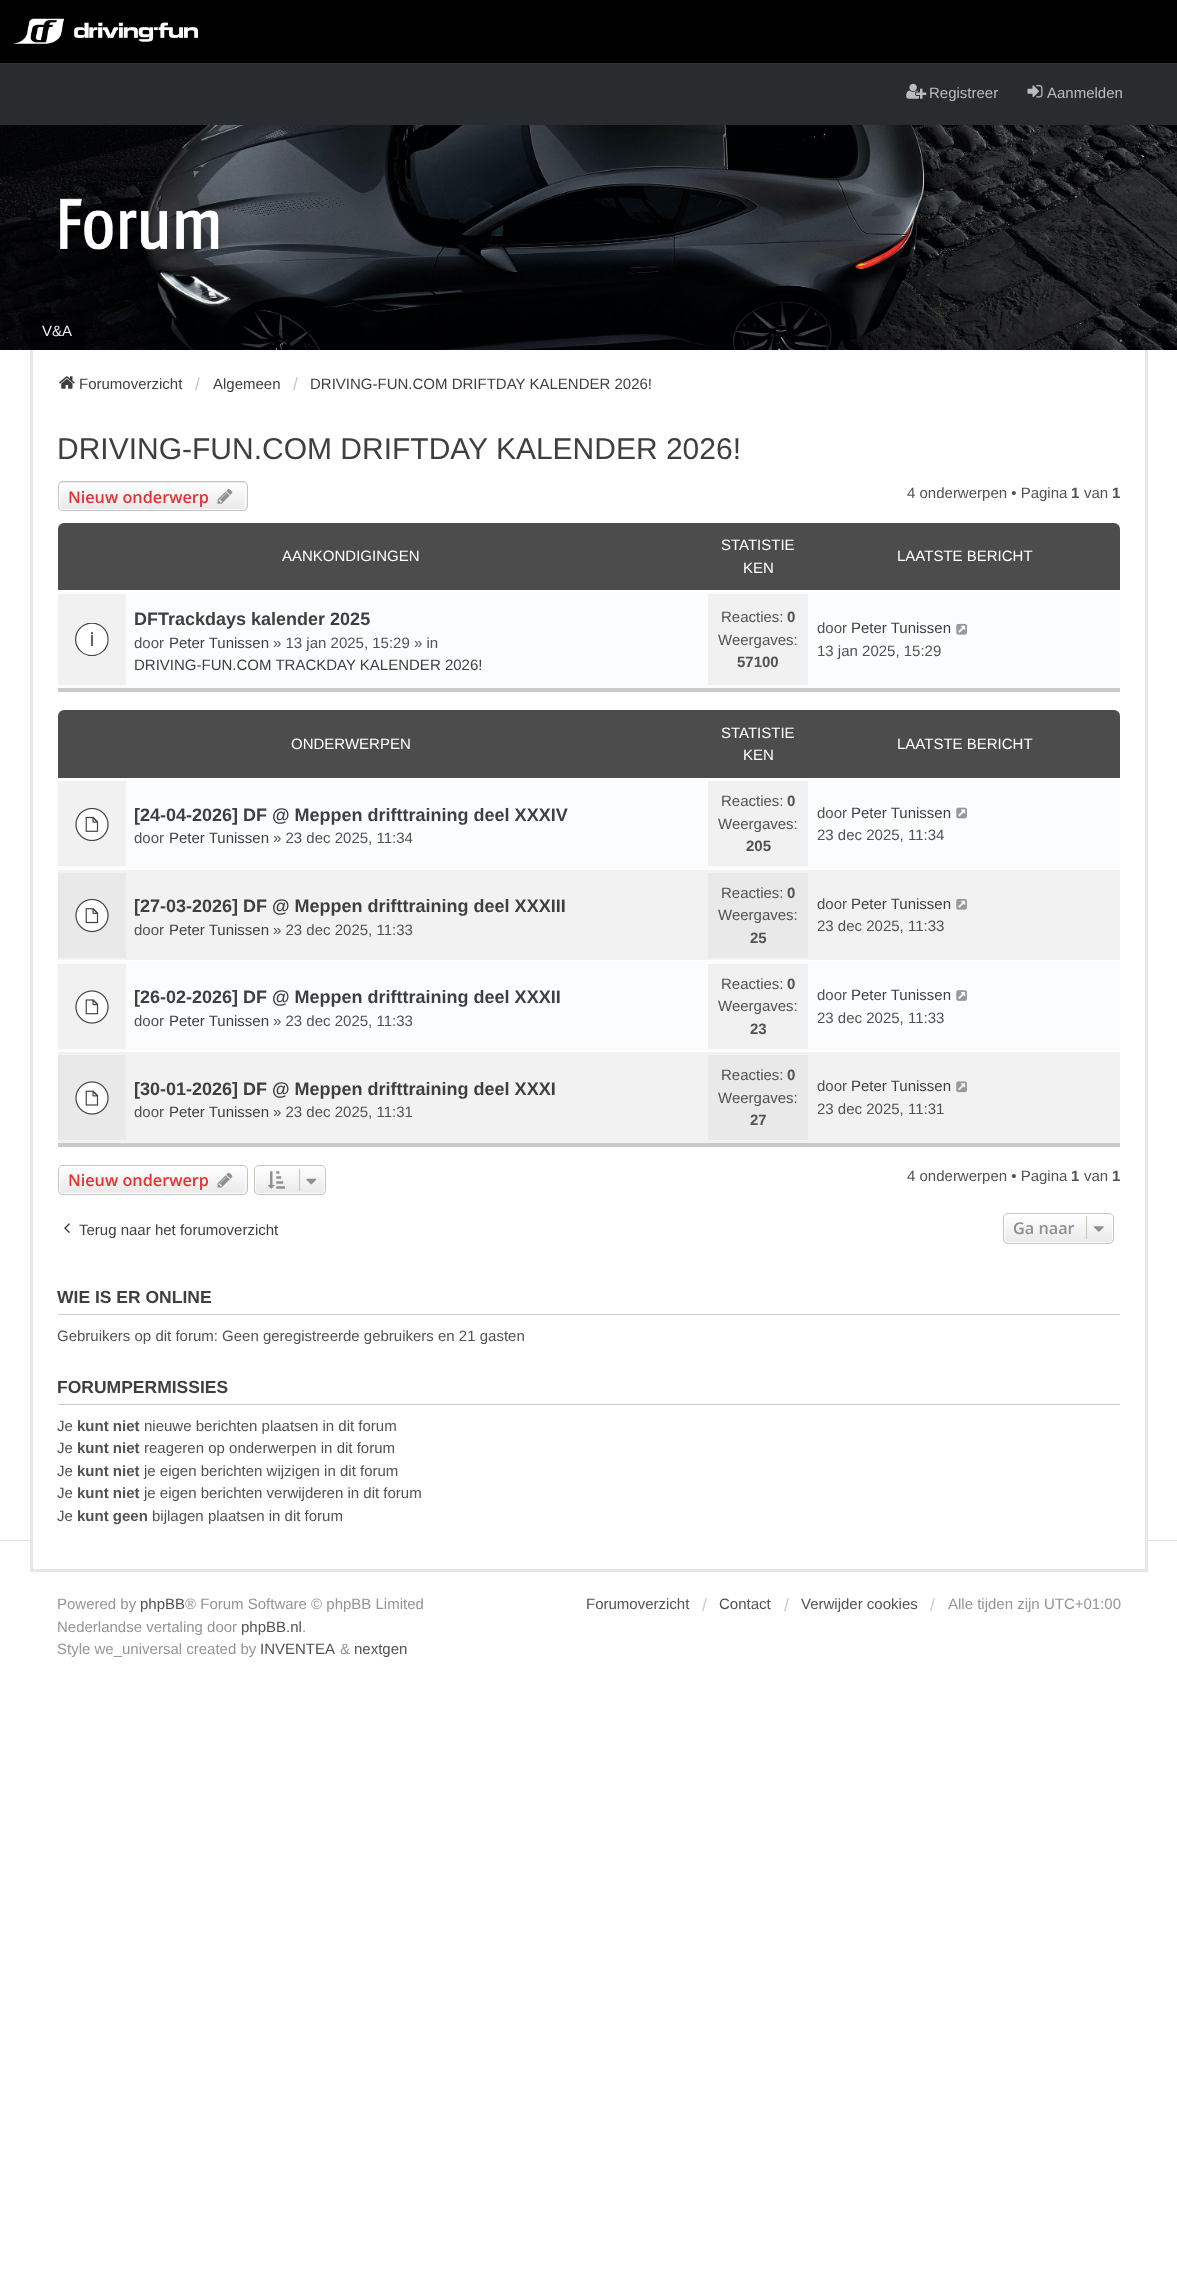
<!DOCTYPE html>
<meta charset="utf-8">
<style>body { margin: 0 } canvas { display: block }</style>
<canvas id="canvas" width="1177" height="2286"></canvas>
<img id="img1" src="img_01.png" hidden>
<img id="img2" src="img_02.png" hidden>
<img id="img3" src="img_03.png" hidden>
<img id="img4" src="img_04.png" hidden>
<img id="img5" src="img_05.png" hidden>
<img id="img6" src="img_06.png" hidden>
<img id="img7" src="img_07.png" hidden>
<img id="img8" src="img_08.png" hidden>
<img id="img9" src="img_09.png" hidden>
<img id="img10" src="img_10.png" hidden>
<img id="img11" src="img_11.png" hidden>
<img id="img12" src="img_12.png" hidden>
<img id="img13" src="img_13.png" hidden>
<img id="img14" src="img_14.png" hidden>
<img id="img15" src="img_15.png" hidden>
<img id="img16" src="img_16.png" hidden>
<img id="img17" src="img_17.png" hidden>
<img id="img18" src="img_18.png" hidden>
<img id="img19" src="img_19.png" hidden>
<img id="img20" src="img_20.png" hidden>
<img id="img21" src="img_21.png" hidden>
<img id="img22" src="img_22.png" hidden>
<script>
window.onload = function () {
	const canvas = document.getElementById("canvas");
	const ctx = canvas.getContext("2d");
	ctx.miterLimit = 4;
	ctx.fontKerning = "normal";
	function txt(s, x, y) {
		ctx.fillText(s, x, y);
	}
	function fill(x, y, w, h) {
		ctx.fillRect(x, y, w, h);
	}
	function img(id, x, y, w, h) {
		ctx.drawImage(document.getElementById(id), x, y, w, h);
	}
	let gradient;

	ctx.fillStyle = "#FFFFFF";
	fill(0, 0, 1177, 2286);
	ctx.fillStyle = "#000000";
	fill(0, 0, 1177, 63);
	ctx.fillStyle = "#343434";
	fill(0, 63, 1177, 1);
	img("img1", 12, 18, 186, 26);
	ctx.fillStyle = "#292C2F";
	fill(0, 64, 1177, 61);
	img("img2", 906, 83, 21, 16);
	img("img3", 1027, 85, 16, 13);
	img("img4", 0, 125, 1177, 225);
	img("img5", 60, 198, 159, 52);
	ctx.fillStyle = "rgba(0, 0, 0, 0.5)";
	fill(30, 313, 55, 37);
	ctx.fillStyle = "#E2E2E2";
	fill(0, 1540, 1177, 1);
	ctx.fillStyle = "#FFFFFF";
	fill(33, 1540, 1112, 1);
	ctx.fillStyle = "#E7E7E7";
	fill(1145, 350, 3, 1221);
	fill(30, 1569, 1118, 3);
	fill(30, 350, 3, 1221);
	img("img6", 59, 376, 16, 13);
	ctx.save();
	ctx.beginPath();
	ctx.roundRect(58, 481, 190, 30, 5);
	ctx.clip();
	gradient = ctx.createLinearGradient(153, 455, 153, 483);
	gradient.addColorStop(0, "#FFFFFF");
	gradient.addColorStop(1, "#E9E9E9");
	ctx.fillStyle = gradient;
	fill(58, 481, 190, 2);
	gradient = ctx.createLinearGradient(153, 483, 153, 510);
	gradient.addColorStop(0, "#FFFFFF");
	gradient.addColorStop(1, "#E9E9E9");
	ctx.fillStyle = gradient;
	fill(58, 483, 190, 27);
	ctx.restore();
	ctx.beginPath();
	ctx.roundRect(59.5, 483.5, 186, 26, 3.5);
	ctx.strokeStyle = "#FFFFFF";
	ctx.stroke();
	ctx.beginPath();
	ctx.roundRect(58.5, 481.5, 189, 29, 4.5);
	ctx.strokeStyle = "#C7C3BF";
	ctx.stroke();
	img("img7", 217, 489, 16, 15);
	ctx.fillStyle = "#4C4C4C";
	ctx.beginPath();
	ctx.roundRect(58, 523, 1062, 168, [6, 6, 0, 0]);
	ctx.fill();
	ctx.fillStyle = "#CACACA";
	fill(58, 688, 1062, 4);
	ctx.fillStyle = "#FAFCFE";
	fill(58, 591, 1062, 97);
	ctx.fillStyle = "#FFFFFF";
	fill(58, 590, 1062, 1);
	ctx.fillStyle = "#F1F1F1";
	fill(58, 594, 68, 91);
	img("img8", 75, 623, 34, 33);
	fill(708, 594, 100, 91);
	img("img9", 956, 623, 11, 12);
	ctx.fillStyle = "#4C4C4C";
	ctx.beginPath();
	ctx.roundRect(58, 710, 1062, 436, [6, 6, 0, 0]);
	ctx.fill();
	ctx.fillStyle = "#CACACA";
	fill(58, 1143, 1062, 4);
	ctx.fillStyle = "#FAFCFE";
	fill(58, 779, 1062, 272);
	ctx.fillStyle = "#FFFFFF";
	fill(58, 778, 1062, 1);
	ctx.fillStyle = "#F1F1F1";
	fill(58, 781, 68, 85);
	img("img10", 75, 808, 34, 33);
	fill(708, 781, 100, 85);
	img("img11", 956, 807, 11, 12);
	ctx.fillStyle = "#F2F2F2";
	fill(58, 870, 1062, 90);
	ctx.fillStyle = "#FFFFFF";
	fill(58, 869, 1062, 1);
	ctx.fillStyle = "#E9E9E9";
	fill(58, 873, 68, 85);
	img("img12", 75, 899, 34, 34);
	fill(708, 873, 100, 85);
	img("img13", 956, 898, 11, 12);
	ctx.fillStyle = "#FFFFFF";
	fill(58, 960, 1062, 1);
	ctx.fillStyle = "#F1F1F1";
	fill(58, 964, 68, 85);
	img("img14", 75, 990, 34, 34);
	fill(708, 964, 100, 85);
	img("img15", 956, 990, 11, 11);
	ctx.fillStyle = "#F2F2F2";
	fill(58, 1052, 1062, 91);
	ctx.fillStyle = "#FFFFFF";
	fill(58, 1051, 1062, 1);
	ctx.fillStyle = "#E9E9E9";
	fill(58, 1055, 68, 85);
	img("img16", 75, 1081, 34, 34);
	fill(708, 1055, 100, 85);
	img("img17", 956, 1081, 11, 12);
	ctx.save();
	ctx.beginPath();
	ctx.roundRect(58, 1165, 190, 30, 5);
	ctx.clip();
	gradient = ctx.createLinearGradient(153, 1166, 153, 1194);
	gradient.addColorStop(0, "#FFFFFF");
	gradient.addColorStop(1, "#E9E9E9");
	ctx.fillStyle = gradient;
	fill(58, 1166, 190, 28);
	ctx.restore();
	ctx.beginPath();
	ctx.roundRect(59.5, 1166.5, 186, 27, 3.5);
	ctx.strokeStyle = "#FFFFFF";
	ctx.stroke();
	ctx.beginPath();
	ctx.roundRect(58.5, 1165.5, 189, 29, 4.5);
	ctx.strokeStyle = "#C7C3BF";
	ctx.stroke();
	img("img18", 217, 1172, 16, 16);
	ctx.save();
	ctx.beginPath();
	ctx.roundRect(254, 1165, 72, 30, 5);
	ctx.clip();
	gradient = ctx.createLinearGradient(290, 1166, 290, 1194);
	gradient.addColorStop(0, "#FFFFFF");
	gradient.addColorStop(1, "#E9E9E9");
	ctx.fillStyle = gradient;
	fill(254, 1166, 72, 28);
	ctx.restore();
	ctx.beginPath();
	ctx.roundRect(255.5, 1166.5, 69, 27, 3.5);
	ctx.strokeStyle = "#FFFFFF";
	ctx.stroke();
	ctx.beginPath();
	ctx.roundRect(254.5, 1165.5, 71, 29, 4.5);
	ctx.strokeStyle = "#C7C3BF";
	ctx.stroke();
	img("img19", 267, 1171, 18, 18);
	ctx.fillStyle = "#C7C3BF";
	fill(299, 1169, 1, 22);
	img("img20", 306, 1178, 11, 7);
	img("img21", 64, 1223, 6, 10);
	ctx.save();
	ctx.beginPath();
	ctx.roundRect(1003, 1213, 111, 31, 5);
	ctx.clip();
	gradient = ctx.createLinearGradient(1058, 1214, 1058, 1243);
	gradient.addColorStop(0, "#FFFFFF");
	gradient.addColorStop(1, "#E9E9E9");
	ctx.fillStyle = gradient;
	fill(1003, 1214, 111, 29);
	ctx.restore();
	ctx.beginPath();
	ctx.roundRect(1004.5, 1214.5, 108, 28, 3.5);
	ctx.strokeStyle = "#FFFFFF";
	ctx.stroke();
	ctx.beginPath();
	ctx.roundRect(1003.5, 1213.5, 110, 30, 4.5);
	ctx.strokeStyle = "#C7C3BF";
	ctx.stroke();
	fill(1086, 1216, 1, 23);
	img("img22", 1093, 1226, 11, 6);
	ctx.fillStyle = "#CCCCCC";
	fill(58, 1314, 1062, 1);
	fill(58, 1404, 1062, 1);
	ctx.font = "15px Liberation Sans";
	ctx.fillStyle = "#BCBCBC";
	txt("Registreer", 929, 98);
	txt("Aanmelden", 1047, 98);
	ctx.fillStyle = "#EEEEEE";
	txt("V&A", 42, 336);
	ctx.fillStyle = "#3F3F3F";
	txt("Forumoverzicht", 79, 389);
	ctx.font = "17.5px Liberation Sans";
	ctx.fillStyle = "#CACACA";
	txt("/", 195, 390);
	ctx.font = "15px Liberation Sans";
	ctx.fillStyle = "#3F3F3F";
	txt("Algemeen", 213, 389);
	ctx.font = "17.5px Liberation Sans";
	ctx.fillStyle = "#CACACA";
	txt("/", 293, 390);
	ctx.font = "15px Liberation Sans";
	ctx.fillStyle = "#3F3F3F";
	txt("DRIVING-FUN.COM DRIFTDAY KALENDER 2026!", 310, 389);
	ctx.font = "30px Liberation Sans";
	txt("DRIVING-FUN.COM DRIFTDAY KALENDER 2026!", 57, 459);
	ctx.font = "600 16.25px Open Sans";
	ctx.fillStyle = "#E63232";
	txt("Nieuw onderwerp", 68, 503);
	ctx.font = "15px Liberation Sans";
	ctx.fillStyle = "#525252";
	txt("4 onderwerpen • Pagina", 907, 498);
	ctx.font = "bold 15px Liberation Sans";
	txt("1", 1071, 498);
	ctx.font = "15px Liberation Sans";
	txt("van", 1084, 498);
	ctx.font = "bold 15px Liberation Sans";
	txt("1", 1112, 498);
	ctx.font = "15px Liberation Sans";
	ctx.fillStyle = "#FFFFFF";
	txt("AANKONDIGINGEN", 282, 561);
	txt("STATISTIE", 721, 550);
	txt("KEN", 743, 573);
	txt("LAATSTE BERICHT", 897, 561);
	ctx.font = "bold 18px Liberation Sans";
	ctx.fillStyle = "#3F3F3F";
	txt("DFTrackdays kalender 2025", 134, 625);
	ctx.font = "15px Liberation Sans";
	ctx.fillStyle = "#525252";
	txt("door", 134, 648);
	ctx.fillStyle = "#3F3F3F";
	txt("Peter Tunissen", 169, 648);
	ctx.fillStyle = "#525252";
	txt("» 13 jan 2025, 15:29 » in", 273, 648);
	ctx.fillStyle = "#3F3F3F";
	txt("DRIVING-FUN.COM TRACKDAY KALENDER 2026!", 134, 670);
	ctx.fillStyle = "#525252";
	txt("Reacties:", 721, 622);
	ctx.font = "bold 15px Liberation Sans";
	txt("0", 787, 622);
	ctx.font = "15px Liberation Sans";
	txt("Weergaves:", 718, 645);
	ctx.font = "bold 15px Liberation Sans";
	txt("57100", 737, 667);
	ctx.font = "15px Liberation Sans";
	txt("door", 817, 633);
	ctx.fillStyle = "#3F3F3F";
	txt("Peter Tunissen", 851, 633);
	ctx.fillStyle = "#525252";
	txt("13 jan 2025, 15:29", 817, 656);
	ctx.fillStyle = "#FFFFFF";
	txt("ONDERWERPEN", 291, 749);
	txt("STATISTIE", 721, 738);
	txt("KEN", 743, 760);
	txt("LAATSTE BERICHT", 897, 749);
	ctx.font = "bold 18px Liberation Sans";
	ctx.fillStyle = "#3F3F3F";
	txt("[24-04-2026] DF @ Meppen drifttraining deel XXXIV", 134, 821);
	ctx.font = "15px Liberation Sans";
	ctx.fillStyle = "#525252";
	txt("door", 134, 843);
	ctx.fillStyle = "#3F3F3F";
	txt("Peter Tunissen", 169, 843);
	ctx.fillStyle = "#525252";
	txt("» 23 dec 2025, 11:34", 273, 843);
	txt("Reacties:", 721, 806);
	ctx.font = "bold 15px Liberation Sans";
	txt("0", 787, 806);
	ctx.font = "15px Liberation Sans";
	txt("Weergaves:", 718, 829);
	ctx.font = "bold 15px Liberation Sans";
	txt("205", 746, 851);
	ctx.font = "15px Liberation Sans";
	txt("door", 817, 818);
	ctx.fillStyle = "#3F3F3F";
	txt("Peter Tunissen", 851, 818);
	ctx.fillStyle = "#525252";
	txt("23 dec 2025, 11:34", 817, 840);
	ctx.font = "bold 18px Liberation Sans";
	ctx.fillStyle = "#3F3F3F";
	txt("[27-03-2026] DF @ Meppen drifttraining deel XXXIII", 134, 912);
	ctx.font = "15px Liberation Sans";
	ctx.fillStyle = "#525252";
	txt("door", 134, 935);
	ctx.fillStyle = "#3F3F3F";
	txt("Peter Tunissen", 169, 935);
	ctx.fillStyle = "#525252";
	txt("» 23 dec 2025, 11:33", 273, 935);
	txt("Reacties:", 721, 898);
	ctx.font = "bold 15px Liberation Sans";
	txt("0", 787, 898);
	ctx.font = "15px Liberation Sans";
	txt("Weergaves:", 718, 920);
	ctx.font = "bold 15px Liberation Sans";
	txt("25", 750, 943);
	ctx.font = "15px Liberation Sans";
	txt("door", 817, 909);
	ctx.fillStyle = "#3F3F3F";
	txt("Peter Tunissen", 851, 909);
	ctx.fillStyle = "#525252";
	txt("23 dec 2025, 11:33", 817, 931);
	ctx.font = "bold 18px Liberation Sans";
	ctx.fillStyle = "#3F3F3F";
	txt("[26-02-2026] DF @ Meppen drifttraining deel XXXII", 134, 1003);
	ctx.font = "15px Liberation Sans";
	ctx.fillStyle = "#525252";
	txt("door", 134, 1026);
	ctx.fillStyle = "#3F3F3F";
	txt("Peter Tunissen", 169, 1026);
	ctx.fillStyle = "#525252";
	txt("» 23 dec 2025, 11:33", 273, 1026);
	txt("Reacties:", 721, 989);
	ctx.font = "bold 15px Liberation Sans";
	txt("0", 787, 989);
	ctx.font = "15px Liberation Sans";
	txt("Weergaves:", 718, 1011);
	ctx.font = "bold 15px Liberation Sans";
	txt("23", 750, 1034);
	ctx.font = "15px Liberation Sans";
	txt("door", 817, 1000);
	ctx.fillStyle = "#3F3F3F";
	txt("Peter Tunissen", 851, 1000);
	ctx.fillStyle = "#525252";
	txt("23 dec 2025, 11:33", 817, 1023);
	ctx.font = "bold 18px Liberation Sans";
	ctx.fillStyle = "#3F3F3F";
	txt("[30-01-2026] DF @ Meppen drifttraining deel XXXI", 134, 1095);
	ctx.font = "15px Liberation Sans";
	ctx.fillStyle = "#525252";
	txt("door", 134, 1117);
	ctx.fillStyle = "#3F3F3F";
	txt("Peter Tunissen", 169, 1117);
	ctx.fillStyle = "#525252";
	txt("» 23 dec 2025, 11:31", 273, 1117);
	txt("Reacties:", 721, 1080);
	ctx.font = "bold 15px Liberation Sans";
	txt("0", 787, 1080);
	ctx.font = "15px Liberation Sans";
	txt("Weergaves:", 718, 1103);
	ctx.font = "bold 15px Liberation Sans";
	txt("27", 750, 1125);
	ctx.font = "15px Liberation Sans";
	txt("door", 817, 1091);
	ctx.fillStyle = "#3F3F3F";
	txt("Peter Tunissen", 851, 1091);
	ctx.fillStyle = "#525252";
	txt("23 dec 2025, 11:31", 817, 1114);
	ctx.font = "600 16.25px Open Sans";
	ctx.fillStyle = "#E63232";
	txt("Nieuw onderwerp", 68, 1186);
	ctx.font = "15px Liberation Sans";
	ctx.fillStyle = "#525252";
	txt("4 onderwerpen • Pagina", 907, 1181);
	ctx.font = "bold 15px Liberation Sans";
	txt("1", 1071, 1181);
	ctx.font = "15px Liberation Sans";
	txt("van", 1084, 1181);
	ctx.font = "bold 15px Liberation Sans";
	txt("1", 1112, 1181);
	ctx.font = "15px Liberation Sans";
	ctx.fillStyle = "#3F3F3F";
	txt("Terug naar het forumoverzicht", 79, 1235);
	ctx.font = "600 16.25px Open Sans";
	ctx.fillStyle = "#8F8F8F";
	txt("Ga naar", 1013, 1234);
	ctx.font = "bold 17.5px Liberation Sans";
	ctx.fillStyle = "#3F3F3F";
	txt("WIE IS ER ONLINE", 57, 1303);
	ctx.font = "15px Liberation Sans";
	ctx.fillStyle = "#525252";
	txt("Gebruikers op dit forum: Geen geregistreerde gebruikers en 21 gasten", 57, 1341);
	ctx.font = "bold 17.5px Liberation Sans";
	ctx.fillStyle = "#3F3F3F";
	txt("FORUMPERMISSIES", 57, 1393);
	ctx.font = "15px Liberation Sans";
	ctx.fillStyle = "#525252";
	txt("Je", 57, 1431);
	ctx.font = "bold 15px Liberation Sans";
	txt("kunt niet", 77, 1431);
	ctx.font = "15px Liberation Sans";
	txt("nieuwe berichten plaatsen in dit forum", 144, 1431);
	txt("Je", 57, 1453);
	ctx.font = "bold 15px Liberation Sans";
	txt("kunt niet", 77, 1453);
	ctx.font = "15px Liberation Sans";
	txt("reageren op onderwerpen in dit forum", 144, 1453);
	txt("Je", 57, 1476);
	ctx.font = "bold 15px Liberation Sans";
	txt("kunt niet", 77, 1476);
	ctx.font = "15px Liberation Sans";
	txt("je eigen berichten wijzigen in dit forum", 144, 1476);
	txt("Je", 57, 1498);
	ctx.font = "bold 15px Liberation Sans";
	txt("kunt niet", 77, 1498);
	ctx.font = "15px Liberation Sans";
	txt("je eigen berichten verwijderen in dit forum", 144, 1498);
	txt("Je", 57, 1521);
	ctx.font = "bold 15px Liberation Sans";
	txt("kunt geen", 77, 1521);
	ctx.font = "15px Liberation Sans";
	txt("bijlagen plaatsen in dit forum", 152, 1521);
	ctx.fillStyle = "#959595";
	txt("Powered by", 57, 1609);
	ctx.fillStyle = "#525252";
	txt("phpBB", 140, 1609);
	ctx.fillStyle = "#959595";
	txt("® Forum Software © phpBB Limited", 185, 1609);
	txt("Nederlandse vertaling door", 57, 1632);
	ctx.fillStyle = "#525252";
	txt("phpBB.nl", 241, 1632);
	ctx.fillStyle = "#959595";
	txt(".", 302, 1632);
	txt("Style we_universal created by", 57, 1654);
	ctx.fillStyle = "#525252";
	txt("INVENTEA", 260, 1654);
	ctx.fillStyle = "#959595";
	txt("&", 340, 1654);
	ctx.fillStyle = "#525252";
	txt("nextgen", 354, 1654);
	txt("Forumoverzicht", 586, 1609);
	ctx.font = "17.5px Liberation Sans";
	ctx.fillStyle = "#CACACA";
	txt("/", 702, 1611);
	ctx.font = "15px Liberation Sans";
	ctx.fillStyle = "#525252";
	txt("Contact", 719, 1609);
	ctx.font = "17.5px Liberation Sans";
	ctx.fillStyle = "#CACACA";
	txt("/", 784, 1611);
	ctx.font = "15px Liberation Sans";
	ctx.fillStyle = "#525252";
	txt("Verwijder cookies", 801, 1609);
	ctx.font = "17.5px Liberation Sans";
	ctx.fillStyle = "#CACACA";
	txt("/", 930, 1611);
	ctx.font = "15px Liberation Sans";
	ctx.fillStyle = "#959595";
	txt("Alle tijden zijn UTC+01:00", 948, 1609);
};
</script>
